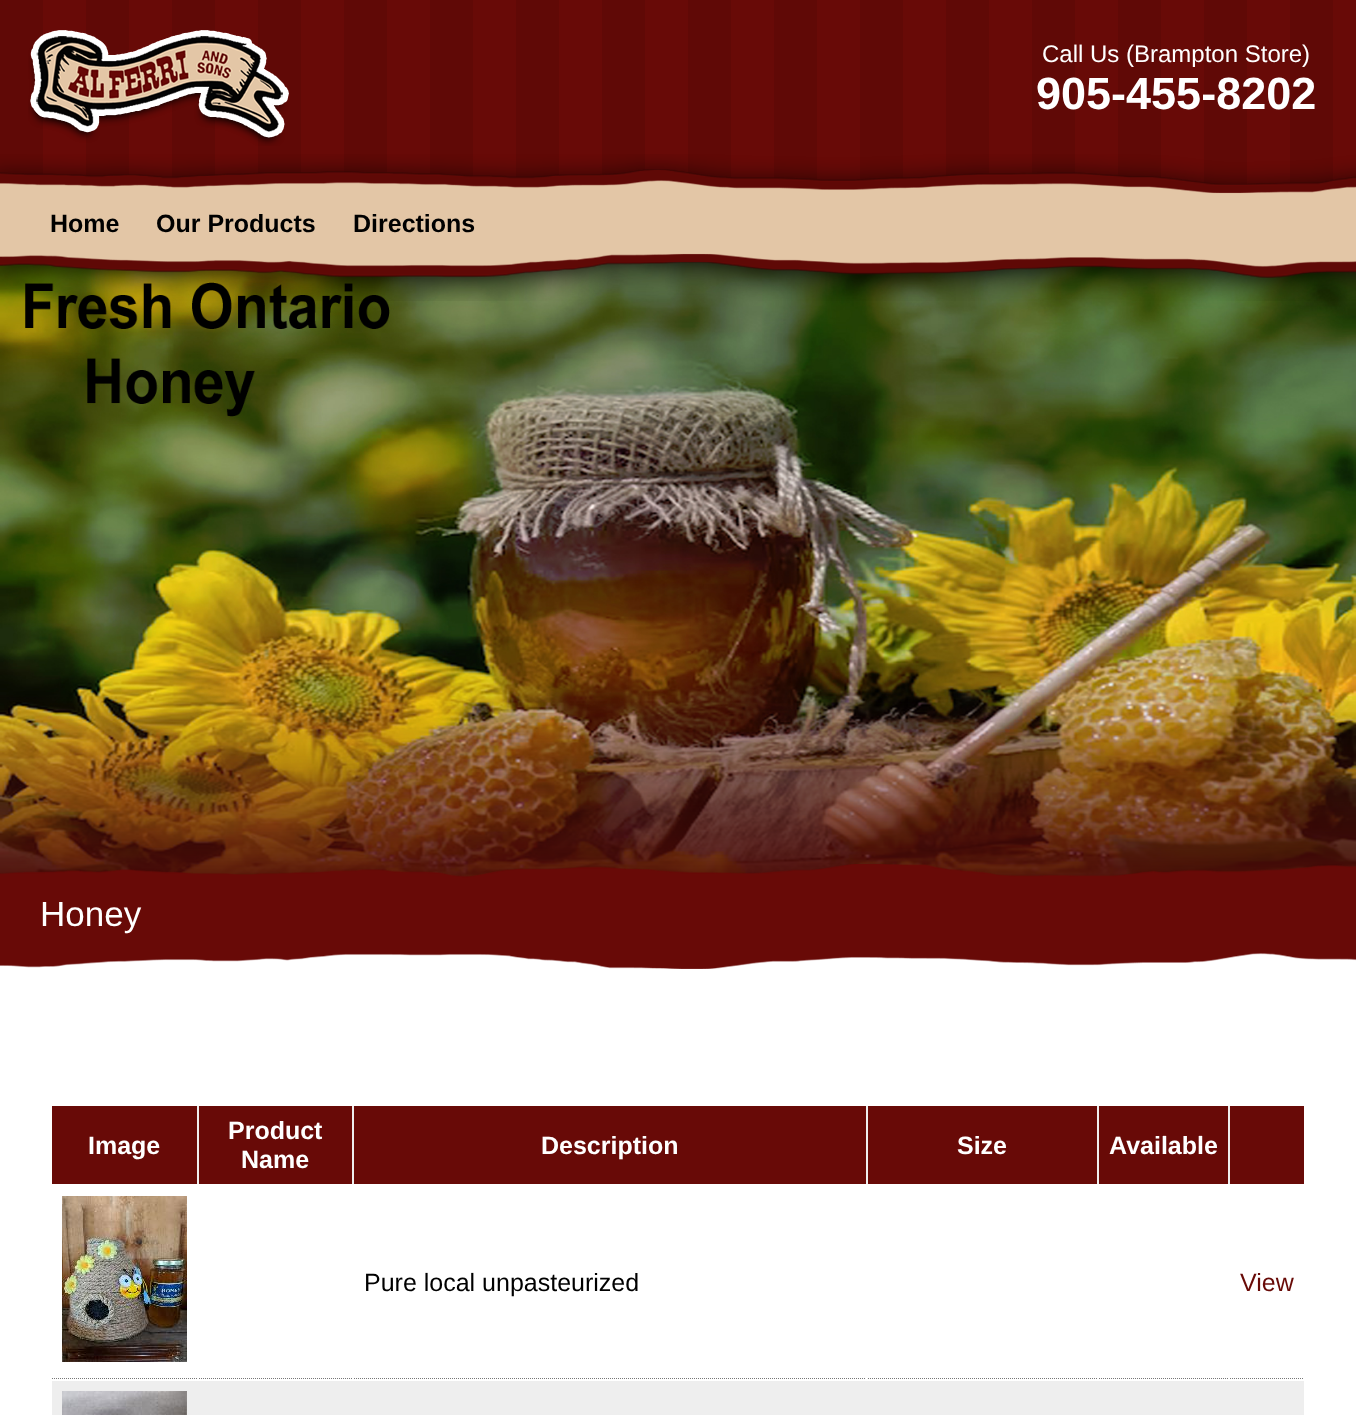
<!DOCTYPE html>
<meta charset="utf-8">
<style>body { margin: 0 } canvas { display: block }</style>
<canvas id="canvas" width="1356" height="1415"></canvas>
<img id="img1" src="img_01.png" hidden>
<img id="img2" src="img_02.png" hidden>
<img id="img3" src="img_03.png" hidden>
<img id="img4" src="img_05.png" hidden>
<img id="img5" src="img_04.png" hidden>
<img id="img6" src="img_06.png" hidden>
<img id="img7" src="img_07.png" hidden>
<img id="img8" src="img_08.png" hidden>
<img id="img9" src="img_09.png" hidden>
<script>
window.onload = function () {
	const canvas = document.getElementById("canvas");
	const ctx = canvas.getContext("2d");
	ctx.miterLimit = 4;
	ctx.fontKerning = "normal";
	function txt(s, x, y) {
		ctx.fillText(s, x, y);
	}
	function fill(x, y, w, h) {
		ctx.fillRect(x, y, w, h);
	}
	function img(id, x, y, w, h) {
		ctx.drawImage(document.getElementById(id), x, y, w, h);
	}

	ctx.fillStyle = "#FFFFFF";
	fill(0, 0, 1356, 1415);
	ctx.fillStyle = "#680A07";
	fill(1333, 0, 23, 181);
	img("img1", 0, 0, 1333, 185);
	img("img2", 28, 30, 261, 116);
	img("img3", 0, 154, 1356, 40);
	ctx.fillStyle = "#E3C6A6";
	fill(0, 194, 1356, 59);
	img("img4", 0, 262, 1356, 616);
	img("img5", 0, 253, 1356, 48);
	img("img6", 0, 864, 1356, 80);
	img("img7", 0, 944, 1356, 25);
	ctx.fillStyle = "#EEEEEE";
	fill(197, 1106, 1033, 78);
	ctx.fillStyle = "#680A07";
	fill(52, 1106, 145, 78);
	fill(199, 1106, 153, 78);
	fill(354, 1106, 512, 78);
	fill(868, 1106, 229, 78);
	fill(1099, 1106, 129, 78);
	fill(1230, 1106, 74, 78);
	ctx.beginPath();
	ctx.moveTo(52, 1378.5);
	ctx.lineTo(197, 1378.5);
	ctx.strokeStyle = "#777777";
	ctx.setLineDash([1, 1]);
	ctx.stroke();
	img("img8", 62, 1196, 125, 166);
	ctx.beginPath();
	ctx.moveTo(354, 1378.5);
	ctx.lineTo(866, 1378.5);
	ctx.stroke();
	ctx.beginPath();
	ctx.moveTo(1230, 1378.5);
	ctx.lineTo(1304, 1378.5);
	ctx.stroke();
	ctx.beginPath();
	ctx.moveTo(199, 1378.5);
	ctx.lineTo(352, 1378.5);
	ctx.stroke();
	ctx.beginPath();
	ctx.moveTo(868, 1378.5);
	ctx.lineTo(1097, 1378.5);
	ctx.stroke();
	ctx.beginPath();
	ctx.moveTo(1099, 1378.5);
	ctx.lineTo(1228, 1378.5);
	ctx.stroke();
	ctx.fillStyle = "#EEEEEE";
	fill(52, 1381, 1252, 34);
	img("img9", 62, 1391, 125, 24);
	ctx.font = "24px Liberation Sans";
	ctx.fillStyle = "#FFFFFF";
	txt("Call Us (Brampton Store)", 1042, 62);
	ctx.font = "bold 45px Liberation Sans";
	txt("905-455-8202", 1036, 109);
	ctx.font = "bold 25px Liberation Sans";
	ctx.fillStyle = "#000000";
	txt("Home", 50, 232);
	txt("Our Products", 156, 232);
	txt("Directions", 353, 232);
	ctx.font = "35px Liberation Sans";
	ctx.fillStyle = "#FFFFFF";
	txt("Honey", 40, 926);
	ctx.font = "bold 25px Liberation Sans";
	txt("Image", 88, 1154);
	txt("Product", 228, 1139);
	txt("Name", 241, 1168);
	txt("Description", 541, 1154);
	txt("Size", 957, 1154);
	txt("Available", 1109, 1154);
	ctx.font = "25px Liberation Sans";
	ctx.fillStyle = "#000000";
	txt("Pure local unpasteurized", 364, 1291);
	ctx.fillStyle = "#680A07";
	txt("View", 1240, 1291);
};
</script>
